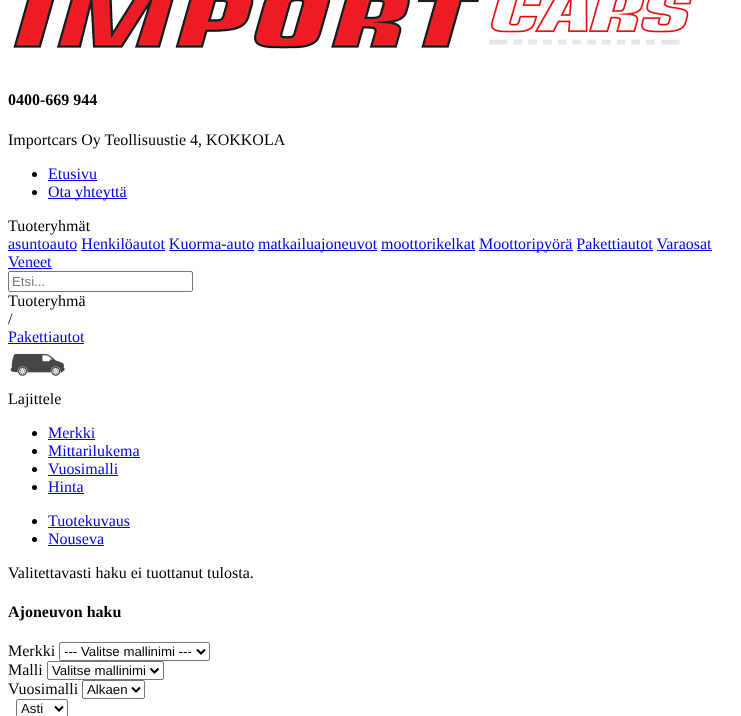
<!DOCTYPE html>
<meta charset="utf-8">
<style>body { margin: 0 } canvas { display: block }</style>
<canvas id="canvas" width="741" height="716"></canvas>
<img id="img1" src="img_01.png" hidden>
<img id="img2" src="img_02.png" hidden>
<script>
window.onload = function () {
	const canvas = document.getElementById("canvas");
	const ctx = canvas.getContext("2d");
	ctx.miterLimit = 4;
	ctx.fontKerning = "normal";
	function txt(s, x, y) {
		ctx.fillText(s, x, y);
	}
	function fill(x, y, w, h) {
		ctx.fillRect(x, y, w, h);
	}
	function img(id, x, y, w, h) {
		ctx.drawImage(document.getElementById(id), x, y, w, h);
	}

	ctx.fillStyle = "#FFFFFF";
	fill(0, 0, 741, 716);
	img("img1", 13, 0, 679, 49);
	ctx.fillStyle = "#000000";
	ctx.beginPath();
	ctx.arc(34.5, 174.5, 2.5, 0, Math.PI * 2);
	ctx.fill();
	ctx.fillStyle = "#0000EE";
	fill(48, 180, 49, 1);
	ctx.fillStyle = "#000000";
	ctx.beginPath();
	ctx.arc(34.5, 192.5, 2.5, 0, Math.PI * 2);
	ctx.fill();
	ctx.fillStyle = "#0000EE";
	fill(48, 198, 79, 1);
	fill(8, 250, 69, 1);
	fill(258, 250, 119, 1);
	fill(479, 250, 94, 1);
	fill(81, 250, 84, 1);
	fill(169, 250, 85, 1);
	fill(381, 250, 94, 1);
	fill(577, 250, 76, 1);
	fill(657, 250, 55, 1);
	fill(8, 268, 44, 1);
	ctx.beginPath();
	ctx.roundRect(8.5, 271.5, 184, 20, 1.5);
	ctx.strokeStyle = "#767676";
	ctx.stroke();
	fill(8, 343, 76, 1);
	img("img2", 10, 353, 55, 23);
	ctx.fillStyle = "#000000";
	ctx.beginPath();
	ctx.arc(34.5, 433.5, 2.5, 0, Math.PI * 2);
	ctx.fill();
	ctx.fillStyle = "#0000EE";
	fill(48, 439, 47, 1);
	ctx.fillStyle = "#000000";
	ctx.beginPath();
	ctx.arc(34.5, 451.5, 2.5, 0, Math.PI * 2);
	ctx.fill();
	ctx.fillStyle = "#0000EE";
	fill(48, 457, 92, 1);
	ctx.fillStyle = "#000000";
	ctx.beginPath();
	ctx.arc(34.5, 469.5, 2.5, 0, Math.PI * 2);
	ctx.fill();
	ctx.fillStyle = "#0000EE";
	fill(48, 475, 70, 1);
	ctx.fillStyle = "#000000";
	ctx.beginPath();
	ctx.arc(34.5, 487.5, 2.5, 0, Math.PI * 2);
	ctx.fill();
	ctx.fillStyle = "#0000EE";
	fill(48, 493, 36, 1);
	ctx.fillStyle = "#000000";
	ctx.beginPath();
	ctx.arc(34.5, 521.5, 2.5, 0, Math.PI * 2);
	ctx.fill();
	ctx.fillStyle = "#0000EE";
	fill(48, 527, 82, 1);
	ctx.fillStyle = "#000000";
	ctx.beginPath();
	ctx.arc(34.5, 539.5, 2.5, 0, Math.PI * 2);
	ctx.fill();
	ctx.fillStyle = "#0000EE";
	fill(48, 545, 56, 1);
	ctx.beginPath();
	ctx.roundRect(59.5, 642.5, 150, 18, 1.5);
	ctx.stroke();
	ctx.beginPath();
	ctx.moveTo(197, 649.5);
	ctx.lineTo(201, 653.5);
	ctx.lineTo(205, 649.5);
	ctx.strokeStyle = "#000000";
	ctx.lineWidth = 2;
	ctx.stroke();
	ctx.beginPath();
	ctx.roundRect(47.5, 661.5, 116, 18, 1.5);
	ctx.strokeStyle = "#767676";
	ctx.lineWidth = 1;
	ctx.stroke();
	ctx.beginPath();
	ctx.moveTo(150.5, 668.5);
	ctx.lineTo(154.5, 672.5);
	ctx.lineTo(158.5, 668.5);
	ctx.strokeStyle = "#000000";
	ctx.lineWidth = 2;
	ctx.stroke();
	ctx.beginPath();
	ctx.roundRect(82.5, 680.5, 62, 18, 1.5);
	ctx.strokeStyle = "#767676";
	ctx.lineWidth = 1;
	ctx.stroke();
	ctx.beginPath();
	ctx.moveTo(132, 687.5);
	ctx.lineTo(136, 691.5);
	ctx.lineTo(140, 687.5);
	ctx.strokeStyle = "#000000";
	ctx.lineWidth = 2;
	ctx.stroke();
	ctx.beginPath();
	ctx.roundRect(16.5, 699.5, 51, 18, 1.5);
	ctx.strokeStyle = "#767676";
	ctx.lineWidth = 1;
	ctx.stroke();
	ctx.beginPath();
	ctx.moveTo(55, 706.5);
	ctx.lineTo(59, 710.5);
	ctx.lineTo(63, 706.5);
	ctx.strokeStyle = "#000000";
	ctx.lineWidth = 2;
	ctx.stroke();
	ctx.font = "bold 16px Liberation Serif";
	ctx.fillStyle = "#000000";
	txt("0400-669 944", 8, 105);
	ctx.font = "16px Liberation Serif";
	txt("Importcars Oy Teollisuustie 4, KOKKOLA", 8, 145);
	ctx.fillStyle = "#0000EE";
	txt("Etusivu", 48, 179);
	txt("Ota yhteyttä", 48, 197);
	ctx.fillStyle = "#000000";
	txt("Tuoteryhmät", 8, 231);
	ctx.fillStyle = "#0000EE";
	txt("asuntoauto Henkilöautot Kuorma-auto", 8, 249);
	txt("matkailuajoneuvot moottorikelkat", 258, 249);
	txt("Moottoripyörä Pakettiautot Varaosat", 479, 249);
	txt("Veneet", 8, 267);
	ctx.font = "13.25px Liberation Sans";
	ctx.fillStyle = "#757575";
	txt("Etsi...", 12, 286);
	ctx.font = "16px Liberation Serif";
	ctx.fillStyle = "#000000";
	txt("Tuoteryhmä", 8, 306);
	txt("/", 8, 324);
	ctx.fillStyle = "#0000EE";
	txt("Pakettiautot", 8, 342);
	ctx.fillStyle = "#000000";
	txt("Lajittele", 8, 404);
	ctx.fillStyle = "#0000EE";
	txt("Merkki", 48, 438);
	txt("Mittarilukema", 48, 456);
	txt("Vuosimalli", 48, 474);
	txt("Hinta", 48, 492);
	txt("Tuotekuvaus", 48, 526);
	txt("Nouseva", 48, 544);
	ctx.fillStyle = "#000000";
	txt("Valitettavasti haku ei tuottanut tulosta.", 8, 578);
	ctx.font = "bold 16px Liberation Serif";
	txt("Ajoneuvon haku", 8, 617);
	ctx.font = "16px Liberation Serif";
	txt("Merkki", 8, 656);
	ctx.font = "13.25px Liberation Sans";
	txt("--- Valitse mallinimi ---", 64, 656);
	ctx.font = "16px Liberation Serif";
	txt("Malli", 8, 675);
	ctx.font = "13.25px Liberation Sans";
	txt("Valitse mallinimi", 52, 675);
	ctx.font = "16px Liberation Serif";
	txt("Vuosimalli", 8, 694);
	ctx.font = "13.25px Liberation Sans";
	txt("Alkaen", 87, 694);
	txt("Asti", 21, 713);
};
</script>
